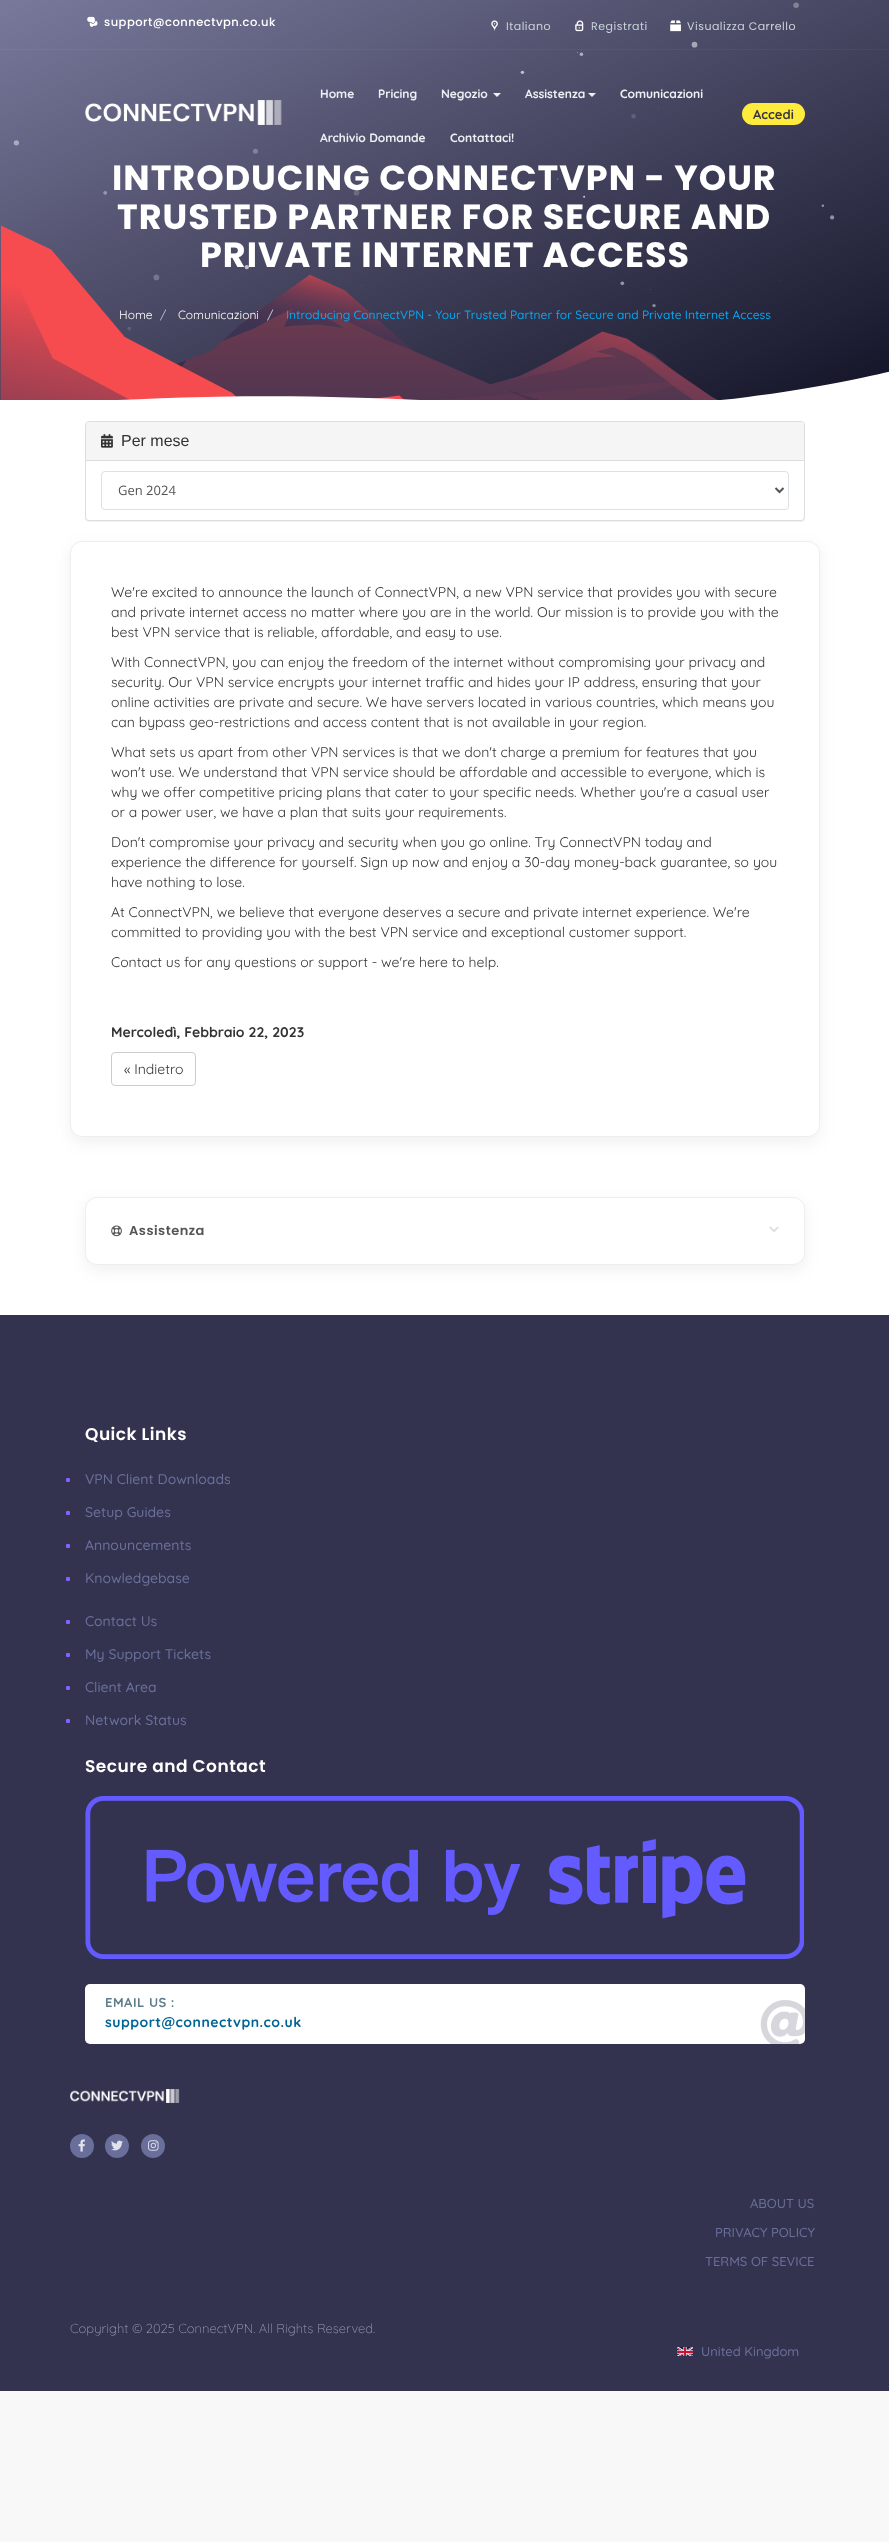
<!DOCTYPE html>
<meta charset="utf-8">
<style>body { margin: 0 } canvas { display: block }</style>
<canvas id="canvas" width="889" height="2542"></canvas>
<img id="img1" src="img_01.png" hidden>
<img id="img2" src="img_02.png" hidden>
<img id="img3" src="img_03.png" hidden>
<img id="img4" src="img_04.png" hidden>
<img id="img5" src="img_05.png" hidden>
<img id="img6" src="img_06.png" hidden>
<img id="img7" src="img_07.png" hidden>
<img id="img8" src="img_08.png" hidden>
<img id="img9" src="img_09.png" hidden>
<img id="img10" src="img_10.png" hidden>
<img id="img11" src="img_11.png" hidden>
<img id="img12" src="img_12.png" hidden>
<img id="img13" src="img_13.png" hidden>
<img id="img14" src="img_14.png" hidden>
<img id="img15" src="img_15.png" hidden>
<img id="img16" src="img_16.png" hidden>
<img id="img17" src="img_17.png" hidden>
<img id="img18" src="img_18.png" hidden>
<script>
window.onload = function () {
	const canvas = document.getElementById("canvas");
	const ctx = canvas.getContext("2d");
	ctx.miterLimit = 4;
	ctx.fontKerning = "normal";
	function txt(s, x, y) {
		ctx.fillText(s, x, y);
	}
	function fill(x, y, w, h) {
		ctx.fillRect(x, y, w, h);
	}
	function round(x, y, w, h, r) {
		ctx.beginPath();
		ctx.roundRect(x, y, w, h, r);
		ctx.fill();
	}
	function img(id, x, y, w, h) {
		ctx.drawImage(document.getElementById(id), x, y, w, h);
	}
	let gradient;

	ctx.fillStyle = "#F8F8F8";
	fill(0, 0, 889, 2542);
	gradient = ctx.createLinearGradient(295, -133, 594, 533);
	gradient.addColorStop(0, "#79799C");
	gradient.addColorStop(1, "#131327");
	ctx.fillStyle = gradient;
	fill(0, 0, 889, 400);
	gradient = ctx.createLinearGradient(295, -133, 594, 533);
	gradient.addColorStop(0, "#7E7EA0");
	gradient.addColorStop(1, "#1C1C30");
	ctx.fillStyle = gradient;
	fill(0, 49, 889, 1);
	img("img1", 13, 2, 822, 329);
	img("img2", 0, 225, 718, 175);
	img("img3", 118, 371, 771, 29);
	img("img4", 87, 16, 11, 12);
	img("img5", 491, 20, 7, 11);
	img("img6", 575, 20, 9, 12);
	img("img7", 670, 20, 11, 12);
	img("img8", 85, 100, 197, 25);
	ctx.fillStyle = "#EDF1F3";
	ctx.beginPath();
	ctx.moveTo(493, 93);
	ctx.lineTo(501, 93);
	ctx.lineTo(497, 97);
	ctx.closePath();
	ctx.fill();
	ctx.beginPath();
	ctx.moveTo(588, 93);
	ctx.lineTo(596, 93);
	ctx.lineTo(592, 97);
	ctx.closePath();
	ctx.fill();
	ctx.fillStyle = "#FFEB3B";
	round(742, 103, 63, 22, 11);
	ctx.fillStyle = "#FFFFFF";
	fill(0, 400, 889, 915);
	ctx.fillStyle = "rgba(0, 0, 0, 0.05)";
	ctx.filter = "blur(0.5px)";
	ctx.beginPath();
	ctx.roundRect(85, 422, 720, 100, 4);
	ctx.fill();
	ctx.filter = "none";
	ctx.fillStyle = "#FFFFFF";
	ctx.beginPath();
	ctx.roundRect(85.5, 421.5, 719, 99, 3.5);
	ctx.fill();
	ctx.strokeStyle = "#DDDDDD";
	ctx.stroke();
	ctx.fillStyle = "#F5F5F5";
	ctx.beginPath();
	ctx.roundRect(86, 422, 718, 39, [3, 3, 0, 0]);
	ctx.fill();
	ctx.fillStyle = "#DDDDDD";
	fill(86, 460, 718, 1);
	img("img9", 101, 434, 12, 14);
	ctx.beginPath();
	ctx.roundRect(101.5, 471.5, 687, 38, 3.5);
	ctx.strokeStyle = "#DBE1E4";
	ctx.stroke();
	ctx.beginPath();
	ctx.moveTo(775.5, 488);
	ctx.lineTo(779.5, 492);
	ctx.lineTo(783.5, 488);
	ctx.strokeStyle = "#555555";
	ctx.lineWidth = 2;
	ctx.stroke();
	ctx.fillStyle = "rgba(110, 110, 110, 0.1)";
	ctx.filter = "blur(7.5px)";
	ctx.beginPath();
	ctx.roundRect(70, 546, 750, 596, 12);
	ctx.fill();
	ctx.filter = "none";
	ctx.fillStyle = "#FFFFFF";
	ctx.beginPath();
	ctx.roundRect(70.5, 541.5, 749, 595, 11.5);
	ctx.fill();
	ctx.strokeStyle = "#EEEEEE";
	ctx.lineWidth = 1;
	ctx.stroke();
	ctx.beginPath();
	ctx.roundRect(111.5, 1052.5, 84, 33, 3.5);
	ctx.strokeStyle = "#CCCCCC";
	ctx.stroke();
	ctx.fillStyle = "rgba(110, 110, 110, 0.1)";
	ctx.filter = "blur(7.5px)";
	ctx.beginPath();
	ctx.roundRect(85, 1202, 720, 68, 12);
	ctx.fill();
	ctx.filter = "none";
	ctx.fillStyle = "#FFFFFF";
	ctx.beginPath();
	ctx.roundRect(85.5, 1197.5, 719, 67, 11.5);
	ctx.fill();
	ctx.strokeStyle = "#EEEEEE";
	ctx.stroke();
	img("img10", 111, 1225, 11, 12);
	img("img11", 769, 1226, 10, 6);
	ctx.fillStyle = "#33334F";
	fill(0, 1315, 889, 1076);
	ctx.fillStyle = "#7F64FF";
	round(66, 1478, 4, 4, 1);
	round(66, 1511, 4, 4, 1);
	round(66, 1544, 4, 4, 1);
	round(66, 1577, 4, 4, 1);
	round(66, 1620, 4, 4, 1);
	round(66, 1653, 4, 4, 1);
	round(66, 1686, 4, 4, 1);
	round(66, 1719, 4, 4, 1);
	img("img12", 85, 1796, 719, 163);
	ctx.fillStyle = "#FFFFFF";
	round(85, 1984, 720, 60, 5);
	img("img13", 760, 2000, 45, 44);
	img("img14", 70, 2089, 110, 14);
	ctx.fillStyle = "#696E9A";
	ctx.beginPath();
	ctx.arc(82, 2146, 12, 0, Math.PI * 2);
	ctx.fill();
	img("img15", 78, 2139, 7, 13);
	ctx.beginPath();
	ctx.arc(117, 2146, 12, 0, Math.PI * 2);
	ctx.fill();
	img("img16", 111, 2140, 12, 11);
	ctx.beginPath();
	ctx.arc(153, 2146, 12, 0, Math.PI * 2);
	ctx.fill();
	img("img17", 148, 2140, 11, 11);
	img("img18", 677, 2347, 16, 9);
	ctx.letterSpacing = "0.5px";
	ctx.font = "500 11.5px Poppins";
	ctx.fillStyle = "#FFFFFF";
	txt("support@connectvpn.co.uk", 104, 26);
	ctx.font = "11px Poppins";
	ctx.fillStyle = "#CAD4DA";
	txt("Italiano", 506, 30);
	txt("Registrati", 591, 30);
	txt("Visualizza Carrello", 687, 30);
	ctx.letterSpacing = "0px";
	ctx.font = "bold 12px Quicksand";
	ctx.fillStyle = "#EDF1F3";
	txt("Home", 320, 98);
	txt("Pricing", 378, 98);
	txt("Negozio", 441, 98);
	txt("Assistenza", 525, 98);
	txt("Comunicazioni", 620, 98);
	txt("Archivio Domande", 320, 142);
	txt("Contattaci!", 450, 142);
	ctx.font = "bold 13px Quicksand";
	ctx.fillStyle = "#363542";
	txt("Accedi", 753, 119);
	ctx.letterSpacing = "1px";
	ctx.font = "bold 35px Poppins";
	ctx.fillStyle = "#FFFFFF";
	txt("INTRODUCING CONNECTVPN - YOUR", 112, 190);
	txt("TRUSTED PARTNER FOR SECURE AND", 117, 229);
	txt("PRIVATE INTERNET ACCESS", 200, 267);
	ctx.letterSpacing = "0px";
	ctx.font = "12px Quicksand";
	txt("Home", 119, 319);
	ctx.fillStyle = "#CCCCCC";
	txt("/", 160, 319);
	ctx.fillStyle = "#FFFFFF";
	txt("Comunicazioni", 178, 319);
	ctx.font = "500 12px Quicksand";
	ctx.fillStyle = "#CCCCCC";
	txt("/", 267, 319);
	ctx.fillStyle = "#03A9F4";
	txt("Introducing ConnectVPN - Your Trusted Partner for Secure and Private Internet Access", 286, 319);
	ctx.font = "16px Liberation Sans";
	ctx.fillStyle = "#333333";
	txt("Per mese", 121, 446);
	ctx.font = "13px Open Sans";
	ctx.fillStyle = "#555555";
	txt("Gen 2024", 118, 495);
	ctx.font = "14px Quicksand";
	ctx.fillStyle = "#333333";
	txt("We're excited to announce the launch of ConnectVPN, a new VPN service that provides you with secure", 111, 597);
	txt("and private internet access no matter where you are in the world. Our mission is to provide you with the", 111, 617);
	txt("best VPN service that is reliable, affordable, and easy to use.", 111, 637);
	txt("With ConnectVPN, you can enjoy the freedom of the internet without compromising your privacy and", 111, 667);
	txt("security. Our VPN service encrypts your internet traffic and hides your IP address, ensuring that your", 111, 687);
	txt("online activities are private and secure. We have servers located in various countries, which means you", 111, 707);
	txt("can bypass geo-restrictions and access content that is not available in your region.", 111, 727);
	txt("What sets us apart from other VPN services is that we don't charge a premium for features that you", 111, 757);
	txt("won't use. We understand that VPN service should be affordable and accessible to everyone, which is", 111, 777);
	txt("why we offer competitive pricing plans that cater to your specific needs. Whether you're a casual user", 111, 797);
	txt("or a power user, we have a plan that suits your requirements.", 111, 817);
	txt("Don't compromise your privacy and security when you go online. Try ConnectVPN today and", 111, 847);
	txt("experience the difference for yourself. Sign up now and enjoy a 30-day money-back guarantee, so you", 111, 867);
	txt("have nothing to lose.", 111, 887);
	txt("At ConnectVPN, we believe that everyone deserves a secure and private internet experience. We're", 111, 917);
	txt("committed to providing you with the best VPN service and exceptional customer support.", 111, 937);
	txt("Contact us for any questions or support - we're here to help.", 111, 967);
	ctx.font = "bold 14px Quicksand";
	txt("Mercoledì, Febbraio 22, 2023", 111, 1037);
	ctx.font = "14px Quicksand";
	txt("« Indietro", 124, 1074);
	ctx.letterSpacing = "0.5px";
	ctx.font = "600 13px Poppins";
	ctx.fillStyle = "#555555";
	txt("Assistenza", 129, 1235);
	ctx.font = "600 17px Poppins";
	ctx.fillStyle = "#FFFFFF";
	txt("Quick Links", 85, 1440);
	ctx.letterSpacing = "0px";
	ctx.font = "500 14px Quicksand";
	ctx.fillStyle = "#6A709B";
	txt("VPN Client Downloads", 85, 1484);
	txt("Setup Guides", 85, 1517);
	txt("Announcements", 85, 1550);
	txt("Knowledgebase", 85, 1583);
	txt("Contact Us", 85, 1626);
	txt("My Support Tickets", 85, 1659);
	txt("Client Area", 85, 1692);
	txt("Network Status", 85, 1725);
	ctx.letterSpacing = "0.5px";
	ctx.font = "600 17px Poppins";
	ctx.fillStyle = "#FFFFFF";
	txt("Secure and Contact", 85, 1772);
	ctx.font = "bold 13px Quicksand";
	ctx.fillStyle = "#607D8B";
	txt("EMAIL US :", 105, 2007);
	ctx.font = "bold 14px Quicksand";
	ctx.fillStyle = "#006495";
	txt("support@connectvpn.co.uk", 105, 2027);
	ctx.letterSpacing = "0px";
	ctx.font = "500 13px Quicksand";
	ctx.fillStyle = "#6A709B";
	txt("ABOUT US", 750, 2208);
	txt("PRIVACY POLICY", 715, 2237);
	txt("TERMS OF SEVICE", 705, 2266);
	ctx.font = "300 13px Quicksand";
	ctx.fillStyle = "#989CBF";
	txt("Copyright © 2025 ConnectVPN. All Rights Reserved.", 70, 2333);
	ctx.font = "500 13px Quicksand";
	ctx.fillStyle = "#6A709B";
	txt("United Kingdom", 701, 2356);
};
</script>
